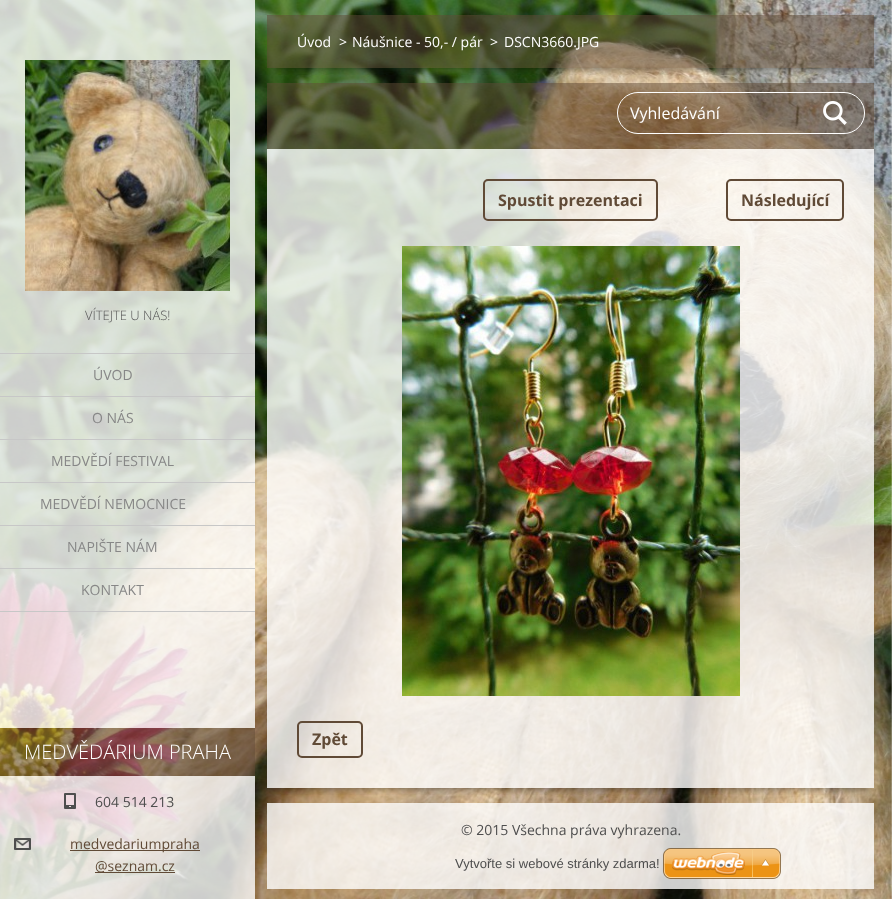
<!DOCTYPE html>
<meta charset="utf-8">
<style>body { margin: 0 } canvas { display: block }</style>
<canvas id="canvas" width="892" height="899"></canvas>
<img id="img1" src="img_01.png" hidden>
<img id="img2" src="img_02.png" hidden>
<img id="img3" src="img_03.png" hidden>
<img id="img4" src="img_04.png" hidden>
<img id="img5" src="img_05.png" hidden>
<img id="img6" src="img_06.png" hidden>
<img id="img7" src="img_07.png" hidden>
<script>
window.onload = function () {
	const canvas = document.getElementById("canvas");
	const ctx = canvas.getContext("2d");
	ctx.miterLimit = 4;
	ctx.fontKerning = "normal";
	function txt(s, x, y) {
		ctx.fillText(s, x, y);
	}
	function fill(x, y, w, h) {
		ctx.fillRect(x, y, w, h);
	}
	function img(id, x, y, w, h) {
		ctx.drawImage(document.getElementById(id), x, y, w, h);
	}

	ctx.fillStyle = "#FFFFFF";
	fill(0, 0, 892, 899);
	img("img1", 0, 0, 892, 899);
	ctx.fillStyle = "rgba(255, 255, 255, 0.8)";
	fill(0, 0, 255, 303);
	img("img2", 25, 60, 205, 231);
	fill(0, 303, 255, 50);
	fill(0, 354, 255, 257);
	ctx.fillStyle = "#C7C7C7";
	fill(0, 353, 255, 1);
	fill(0, 396, 255, 1);
	fill(0, 439, 255, 1);
	fill(0, 482, 255, 1);
	fill(0, 525, 255, 1);
	fill(0, 568, 255, 1);
	fill(0, 611, 255, 1);
	ctx.fillStyle = "rgba(255, 255, 255, 0.8)";
	fill(0, 612, 255, 116);
	ctx.fillStyle = "rgba(96, 74, 54, 0.5)";
	fill(0, 728, 255, 48);
	ctx.fillStyle = "rgba(255, 255, 255, 0.8)";
	fill(0, 776, 255, 123);
	img("img3", 64, 793, 12, 16);
	img("img4", 14, 838, 17, 12);
	ctx.fillStyle = "#604A36";
	fill(70, 850, 130, 1);
	fill(95, 872, 80, 1);
	ctx.save();
	ctx.beginPath();
	ctx.rect(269, 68, 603, 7);
	ctx.clip();
	ctx.fillStyle = "rgba(0, 0, 0, 0.35)";
	ctx.filter = "blur(3px)";
	ctx.beginPath();
	ctx.rect(273, 29, 595, 41);
	ctx.fill();
	ctx.filter = "none";
	ctx.restore();
	ctx.fillStyle = "rgba(96, 74, 54, 0.5)";
	fill(267, 15, 607, 53);
	ctx.save();
	ctx.beginPath();
	ctx.rect(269, 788, 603, 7);
	ctx.clip();
	ctx.fillStyle = "rgba(0, 0, 0, 0.35)";
	ctx.filter = "blur(3px)";
	ctx.beginPath();
	ctx.rect(273, 97, 595, 693);
	ctx.fill();
	ctx.filter = "none";
	ctx.restore();
	fill(267, 83, 607, 66);
	ctx.beginPath();
	ctx.roundRect(617.5, 92.5, 247, 41, 20.5);
	ctx.strokeStyle = "#FFFFFF";
	ctx.stroke();
	img("img5", 823, 101, 24, 24);
	ctx.fillStyle = "rgba(255, 255, 255, 0.8)";
	fill(267, 149, 607, 572);
	ctx.beginPath();
	ctx.roundRect(484, 180, 173, 40, 4);
	ctx.strokeStyle = "#604A36";
	ctx.lineWidth = 2;
	ctx.stroke();
	ctx.beginPath();
	ctx.roundRect(727, 180, 116, 40, 4);
	ctx.stroke();
	img("img6", 402, 246, 338, 450);
	fill(267, 721, 607, 67);
	ctx.beginPath();
	ctx.roundRect(298, 722, 64, 35, 4);
	ctx.stroke();
	fill(267, 803, 607, 86);
	img("img7", 663, 848, 118, 31);
	ctx.font = "300 13px Open Sans";
	ctx.fillStyle = "#555555";
	txt("VÍTEJTE U NÁS!", 85, 320);
	ctx.font = "14px Open Sans";
	ctx.fillStyle = "#878787";
	txt("ÚVOD", 93, 380);
	txt("O NÁS", 92, 423);
	txt("MEDVĚDÍ FESTIVAL", 51, 466);
	txt("MEDVĚDÍ NEMOCNICE", 40, 509);
	txt("NAPIŠTE NÁM", 67, 552);
	txt("KONTAKT", 81, 595);
	ctx.font = "300 20px Open Sans";
	ctx.fillStyle = "#FFFFFF";
	txt("MEDVĚDÁRIUM PRAHA", 24, 759);
	ctx.font = "14px Open Sans";
	ctx.fillStyle = "#4E4E4E";
	txt("604 514 213", 95, 807);
	ctx.fillStyle = "#604A36";
	txt("medvedariumpraha", 70, 849);
	txt("@seznam.cz", 95, 871);
	ctx.fillStyle = "#FFFFFF";
	txt("Úvod", 297, 47);
	txt(">", 339, 47);
	txt("Náušnice - 50,- / pár", 352, 47);
	txt(">", 490, 47);
	txt("DSCN3660.JPG", 504, 47);
	ctx.font = "16px Open Sans";
	txt("Vyhledávání", 630, 119);
	ctx.font = "bold 16px Open Sans";
	ctx.fillStyle = "#604A36";
	txt("Spustit prezentaci", 498, 206);
	txt("Následující", 741, 206);
	txt("Zpět", 312, 745);
	ctx.font = "14px Open Sans";
	ctx.fillStyle = "#4E4E4E";
	txt("© 2015 Všechna práva vyhrazena.", 461, 835);
	ctx.font = "13px Liberation Sans";
	txt("Vytvořte si webové stránky zdarma!", 455, 868);
};
</script>
